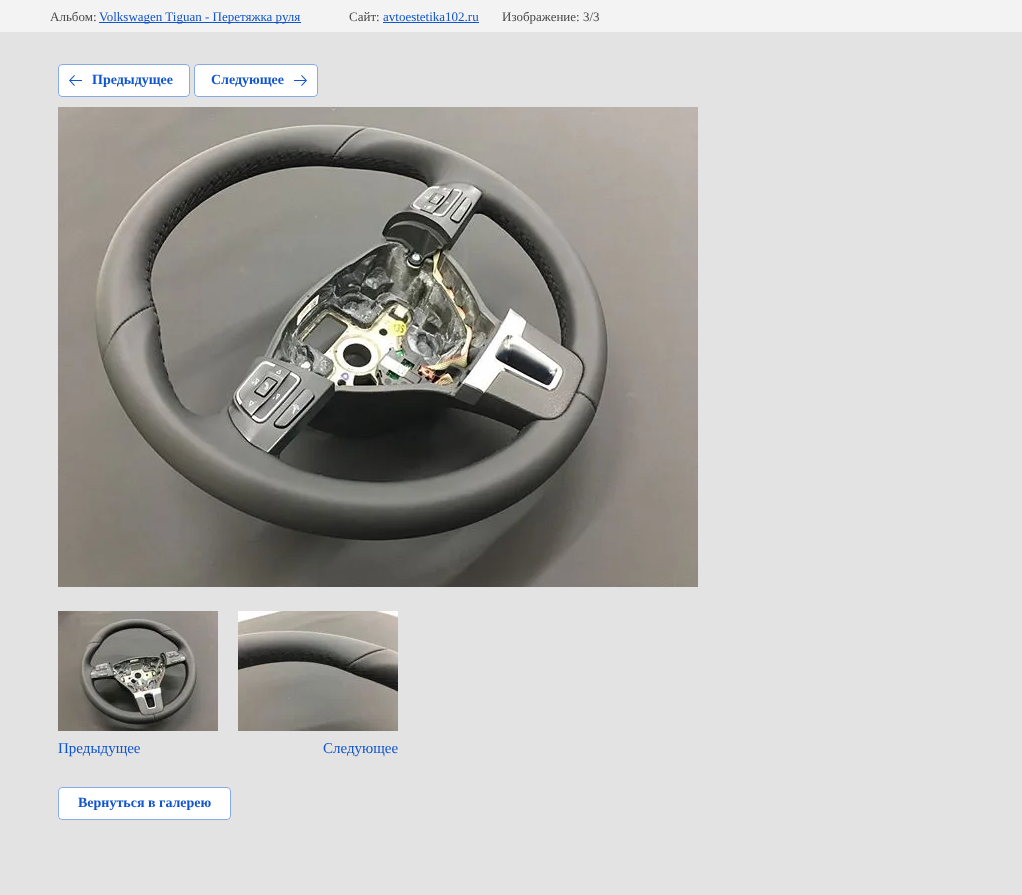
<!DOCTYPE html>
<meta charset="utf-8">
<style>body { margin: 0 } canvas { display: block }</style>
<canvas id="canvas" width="1022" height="895"></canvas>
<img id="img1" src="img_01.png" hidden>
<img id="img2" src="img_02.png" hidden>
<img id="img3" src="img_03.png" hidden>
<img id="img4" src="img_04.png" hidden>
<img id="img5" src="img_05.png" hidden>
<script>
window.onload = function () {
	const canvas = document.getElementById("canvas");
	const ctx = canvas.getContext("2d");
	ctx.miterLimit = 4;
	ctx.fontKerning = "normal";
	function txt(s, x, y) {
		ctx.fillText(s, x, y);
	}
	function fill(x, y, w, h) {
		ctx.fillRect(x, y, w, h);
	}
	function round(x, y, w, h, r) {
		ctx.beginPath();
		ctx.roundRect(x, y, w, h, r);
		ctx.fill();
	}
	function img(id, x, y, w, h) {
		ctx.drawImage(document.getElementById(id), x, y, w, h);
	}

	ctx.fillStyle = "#E3E3E3";
	fill(0, 0, 1022, 895);
	ctx.fillStyle = "#F3F3F3";
	fill(0, 0, 1022, 32);
	ctx.fillStyle = "#1155CC";
	fill(99, 22, 202, 1);
	fill(383, 22, 96, 1);
	ctx.fillStyle = "#FFFFFF";
	round(58, 64, 132, 33, 4);
	ctx.beginPath();
	ctx.roundRect(58.5, 64.5, 131, 32, 3.5);
	ctx.strokeStyle = "rgba(17, 85, 204, 0.5)";
	ctx.stroke();
	img("img1", 69, 75, 13, 11);
	round(194, 64, 124, 33, 4);
	ctx.beginPath();
	ctx.roundRect(194.5, 64.5, 123, 32, 3.5);
	ctx.stroke();
	img("img2", 294, 75, 13, 11);
	img("img3", 58, 107, 640, 480);
	img("img4", 58, 611, 160, 120);
	img("img5", 238, 611, 160, 120);
	round(58, 787, 173, 33, 4);
	ctx.beginPath();
	ctx.roundRect(58.5, 787.5, 172, 32, 3.5);
	ctx.stroke();
	ctx.font = "13px Liberation Serif";
	ctx.fillStyle = "#484848";
	txt("Альбом:", 50, 21);
	ctx.fillStyle = "#1155CC";
	txt("Volkswagen Tiguan - Перетяжка руля", 99, 21);
	ctx.fillStyle = "#484848";
	txt("Сайт:", 349, 21);
	ctx.fillStyle = "#1155CC";
	txt("avtoestetika102.ru", 383, 21);
	ctx.fillStyle = "#484848";
	txt("Изображение: 3/3", 502, 21);
	ctx.font = "bold 14px Liberation Serif";
	ctx.fillStyle = "#1155CC";
	txt("Предыдущее", 92, 84);
	txt("Следующее", 211, 84);
	ctx.font = "15px Liberation Serif";
	txt("Предыдущее", 58, 753);
	txt("Следующее", 323, 753);
	ctx.font = "bold 14px Liberation Serif";
	txt("Вернуться в галерею", 78, 807);
};
</script>
